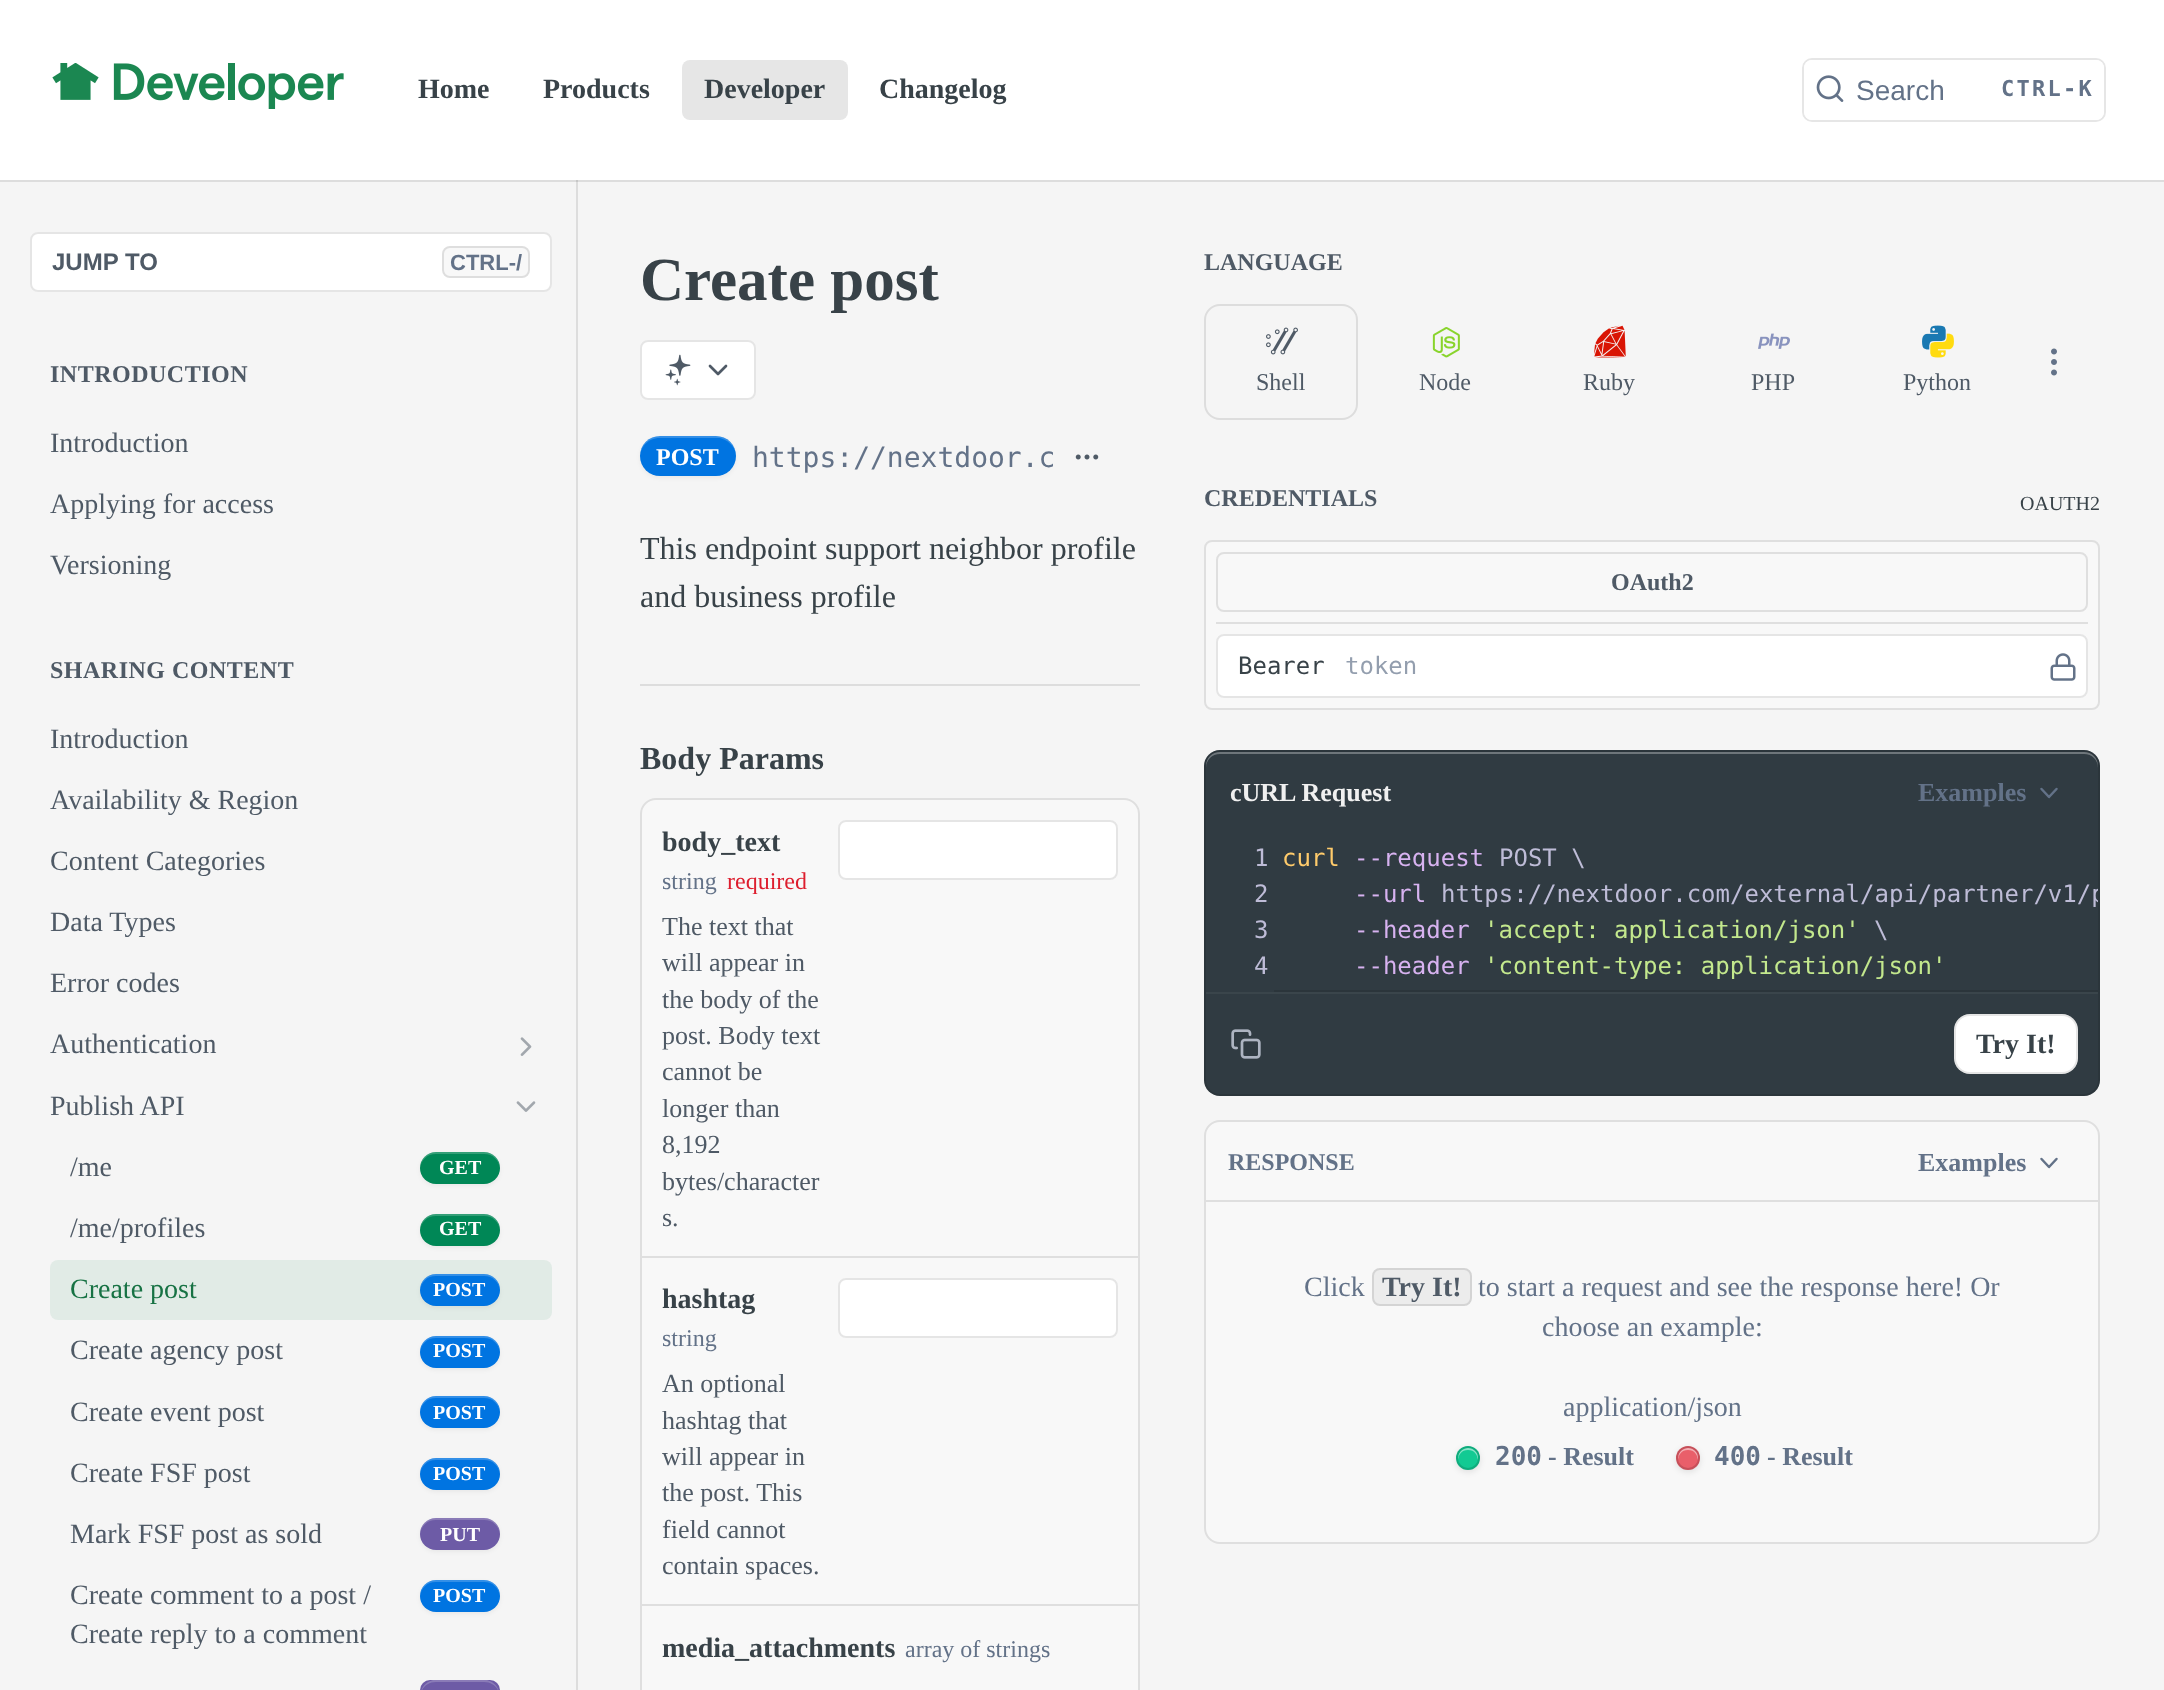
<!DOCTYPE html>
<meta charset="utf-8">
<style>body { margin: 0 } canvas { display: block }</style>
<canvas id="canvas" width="2164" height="1690"></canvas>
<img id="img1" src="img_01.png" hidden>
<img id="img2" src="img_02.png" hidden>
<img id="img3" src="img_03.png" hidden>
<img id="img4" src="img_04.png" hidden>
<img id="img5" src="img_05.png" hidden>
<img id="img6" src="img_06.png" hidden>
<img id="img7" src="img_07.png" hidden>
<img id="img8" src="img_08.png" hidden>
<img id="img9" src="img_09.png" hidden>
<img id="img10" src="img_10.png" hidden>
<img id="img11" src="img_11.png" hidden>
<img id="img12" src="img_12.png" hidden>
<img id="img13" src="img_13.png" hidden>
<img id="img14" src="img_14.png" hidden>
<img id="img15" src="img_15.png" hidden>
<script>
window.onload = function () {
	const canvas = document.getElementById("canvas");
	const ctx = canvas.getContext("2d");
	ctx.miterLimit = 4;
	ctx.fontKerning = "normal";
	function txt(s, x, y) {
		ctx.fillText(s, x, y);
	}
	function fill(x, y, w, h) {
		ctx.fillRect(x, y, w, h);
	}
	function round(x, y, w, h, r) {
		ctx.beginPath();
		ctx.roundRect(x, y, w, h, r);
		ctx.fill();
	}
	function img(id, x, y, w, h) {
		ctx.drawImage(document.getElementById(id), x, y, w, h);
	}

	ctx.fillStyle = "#F5F5F5";
	fill(0, 0, 2164, 1690);
	ctx.fillStyle = "#DDDDDD";
	fill(0, 180, 2164, 2);
	ctx.fillStyle = "#FFFFFF";
	fill(0, 0, 2164, 180);
	img("img1", 52, 63, 292, 46);
	ctx.fillStyle = "#E6E6E6";
	round(682, 60, 166, 60, 8);
	ctx.beginPath();
	ctx.roundRect(1803, 59, 302, 62, 9);
	ctx.strokeStyle = "#E6E6E6";
	ctx.lineWidth = 2;
	ctx.stroke();
	ctx.fillStyle = "#FFFFFF";
	round(1804, 60, 300, 60, 8);
	img("img2", 1816, 75, 28, 27);
	ctx.fillStyle = "#DDDDDD";
	fill(576, 180, 2, 1510);
	ctx.fillStyle = "#C7C7C7";
	fill(576, 180, 2, 2);
	ctx.fillStyle = "#FFFFFF";
	round(30, 232, 522, 60, 8);
	ctx.beginPath();
	ctx.roundRect(31, 233, 520, 58, 7);
	ctx.strokeStyle = "rgba(0, 0, 0, 0.1)";
	ctx.stroke();
	ctx.fillStyle = "#F8F8F8";
	round(442, 246, 88, 32, 8);
	ctx.beginPath();
	ctx.roundRect(443, 247, 86, 30, 7);
	ctx.stroke();
	img("img3", 520, 1037, 12, 19);
	img("img4", 516, 1101, 20, 11);
	ctx.fillStyle = "rgba(0, 0, 0, 0.05)";
	ctx.filter = "blur(2px)";
	ctx.beginPath();
	ctx.roundRect(420, 1154, 80, 32, 16);
	ctx.fill();
	ctx.filter = "none";
	ctx.fillStyle = "#008756";
	round(420, 1152, 80, 32, 16);
	ctx.fillStyle = "rgba(255, 255, 255, 0.2)";
	ctx.beginPath();
	ctx.moveTo(436, 1154);
	ctx.lineTo(484, 1154);
	ctx.bezierCurveTo(493, 1154, 499, 1160, 500, 1169);
	ctx.bezierCurveTo(500, 1161, 495, 1154, 487, 1152);
	ctx.lineTo(433, 1152);
	ctx.bezierCurveTo(425, 1154, 420, 1161, 420, 1169);
	ctx.bezierCurveTo(421, 1160, 427, 1154, 436, 1154);
	ctx.closePath();
	ctx.fill();
	ctx.fillStyle = "rgba(0, 0, 0, 0.05)";
	ctx.filter = "blur(2px)";
	ctx.beginPath();
	ctx.roundRect(420, 1216, 80, 32, 16);
	ctx.fill();
	ctx.filter = "none";
	ctx.fillStyle = "#008756";
	round(420, 1214, 80, 32, 16);
	ctx.fillStyle = "rgba(255, 255, 255, 0.2)";
	ctx.beginPath();
	ctx.moveTo(436, 1216);
	ctx.lineTo(484, 1216);
	ctx.bezierCurveTo(493, 1216, 499, 1222, 500, 1231);
	ctx.bezierCurveTo(500, 1223, 495, 1216, 487, 1214);
	ctx.lineTo(433, 1214);
	ctx.bezierCurveTo(425, 1216, 420, 1223, 420, 1231);
	ctx.bezierCurveTo(421, 1222, 427, 1216, 436, 1216);
	ctx.closePath();
	ctx.fill();
	ctx.fillStyle = "#E1EBE6";
	round(50, 1260, 502, 60, 8);
	ctx.fillStyle = "rgba(0, 0, 0, 0.05)";
	ctx.filter = "blur(2px)";
	ctx.beginPath();
	ctx.roundRect(420, 1276, 80, 32, 16);
	ctx.fill();
	ctx.filter = "none";
	ctx.fillStyle = "#0074E1";
	round(420, 1274, 80, 32, 16);
	ctx.fillStyle = "rgba(255, 255, 255, 0.2)";
	ctx.beginPath();
	ctx.moveTo(436, 1276);
	ctx.lineTo(484, 1276);
	ctx.bezierCurveTo(493, 1276, 499, 1282, 500, 1291);
	ctx.bezierCurveTo(500, 1283, 495, 1276, 487, 1274);
	ctx.lineTo(433, 1274);
	ctx.bezierCurveTo(425, 1276, 420, 1283, 420, 1291);
	ctx.bezierCurveTo(421, 1282, 427, 1276, 436, 1276);
	ctx.closePath();
	ctx.fill();
	ctx.fillStyle = "rgba(0, 0, 0, 0.05)";
	ctx.filter = "blur(2px)";
	ctx.beginPath();
	ctx.roundRect(420, 1338, 80, 32, 16);
	ctx.fill();
	ctx.filter = "none";
	ctx.fillStyle = "#0074E1";
	round(420, 1336, 80, 32, 16);
	ctx.fillStyle = "rgba(255, 255, 255, 0.2)";
	ctx.beginPath();
	ctx.moveTo(436, 1338);
	ctx.lineTo(484, 1338);
	ctx.bezierCurveTo(493, 1338, 499, 1344, 500, 1353);
	ctx.bezierCurveTo(500, 1345, 495, 1338, 487, 1336);
	ctx.lineTo(433, 1336);
	ctx.bezierCurveTo(425, 1338, 420, 1345, 420, 1353);
	ctx.bezierCurveTo(421, 1344, 427, 1338, 436, 1338);
	ctx.closePath();
	ctx.fill();
	ctx.fillStyle = "rgba(0, 0, 0, 0.05)";
	ctx.filter = "blur(2px)";
	ctx.beginPath();
	ctx.roundRect(420, 1398, 80, 32, 16);
	ctx.fill();
	ctx.filter = "none";
	ctx.fillStyle = "#0074E1";
	round(420, 1396, 80, 32, 16);
	ctx.fillStyle = "rgba(255, 255, 255, 0.2)";
	ctx.beginPath();
	ctx.moveTo(436, 1398);
	ctx.lineTo(484, 1398);
	ctx.bezierCurveTo(493, 1398, 499, 1404, 500, 1413);
	ctx.bezierCurveTo(500, 1405, 495, 1398, 487, 1396);
	ctx.lineTo(433, 1396);
	ctx.bezierCurveTo(425, 1398, 420, 1405, 420, 1413);
	ctx.bezierCurveTo(421, 1404, 427, 1398, 436, 1398);
	ctx.closePath();
	ctx.fill();
	ctx.fillStyle = "rgba(0, 0, 0, 0.05)";
	ctx.filter = "blur(2px)";
	ctx.beginPath();
	ctx.roundRect(420, 1460, 80, 32, 16);
	ctx.fill();
	ctx.filter = "none";
	ctx.fillStyle = "#0074E1";
	round(420, 1458, 80, 32, 16);
	ctx.fillStyle = "rgba(255, 255, 255, 0.2)";
	ctx.beginPath();
	ctx.moveTo(436, 1460);
	ctx.lineTo(484, 1460);
	ctx.bezierCurveTo(493, 1460, 499, 1466, 500, 1475);
	ctx.bezierCurveTo(500, 1467, 495, 1460, 487, 1458);
	ctx.lineTo(433, 1458);
	ctx.bezierCurveTo(425, 1460, 420, 1467, 420, 1475);
	ctx.bezierCurveTo(421, 1466, 427, 1460, 436, 1460);
	ctx.closePath();
	ctx.fill();
	ctx.fillStyle = "rgba(0, 0, 0, 0.05)";
	ctx.filter = "blur(2px)";
	ctx.beginPath();
	ctx.roundRect(420, 1520, 80, 32, 16);
	ctx.fill();
	ctx.filter = "none";
	ctx.fillStyle = "#6D5BA6";
	round(420, 1518, 80, 32, 16);
	ctx.fillStyle = "rgba(255, 255, 255, 0.2)";
	ctx.beginPath();
	ctx.moveTo(436, 1520);
	ctx.lineTo(484, 1520);
	ctx.bezierCurveTo(493, 1520, 499, 1526, 500, 1535);
	ctx.bezierCurveTo(500, 1527, 495, 1520, 487, 1518);
	ctx.lineTo(433, 1518);
	ctx.bezierCurveTo(425, 1520, 420, 1527, 420, 1535);
	ctx.bezierCurveTo(421, 1526, 427, 1520, 436, 1520);
	ctx.closePath();
	ctx.fill();
	ctx.fillStyle = "rgba(0, 0, 0, 0.05)";
	ctx.filter = "blur(2px)";
	ctx.beginPath();
	ctx.roundRect(420, 1582, 80, 32, 16);
	ctx.fill();
	ctx.filter = "none";
	ctx.fillStyle = "#0074E1";
	round(420, 1580, 80, 32, 16);
	ctx.fillStyle = "rgba(255, 255, 255, 0.2)";
	ctx.beginPath();
	ctx.moveTo(436, 1582);
	ctx.lineTo(484, 1582);
	ctx.bezierCurveTo(493, 1582, 499, 1588, 500, 1597);
	ctx.bezierCurveTo(500, 1589, 495, 1582, 487, 1580);
	ctx.lineTo(433, 1580);
	ctx.bezierCurveTo(425, 1582, 420, 1589, 420, 1597);
	ctx.bezierCurveTo(421, 1588, 427, 1582, 436, 1582);
	ctx.closePath();
	ctx.fill();
	ctx.fillStyle = "#6D5BA6";
	ctx.beginPath();
	ctx.roundRect(420, 1680, 80, 10, [16, 16, 0, 0]);
	ctx.fill();
	ctx.fillStyle = "rgba(255, 255, 255, 0.2)";
	ctx.beginPath();
	ctx.moveTo(436, 1682);
	ctx.lineTo(484, 1682);
	ctx.bezierCurveTo(493, 1682, 499, 1688, 500, 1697);
	ctx.bezierCurveTo(500, 1689, 495, 1682, 487, 1680);
	ctx.lineTo(433, 1680);
	ctx.bezierCurveTo(425, 1682, 420, 1689, 420, 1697);
	ctx.bezierCurveTo(421, 1688, 427, 1682, 436, 1682);
	ctx.closePath();
	ctx.fill();
	ctx.fillStyle = "#DDDDDD";
	fill(640, 684, 500, 2);
	ctx.fillStyle = "#FFFFFF";
	round(640, 340, 116, 60, 8);
	ctx.beginPath();
	ctx.roundRect(641, 341, 114, 58, 7);
	ctx.stroke();
	img("img5", 665, 354, 26, 32);
	ctx.beginPath();
	ctx.moveTo(710, 366);
	ctx.lineTo(718, 374);
	ctx.lineTo(726, 366);
	ctx.strokeStyle = "#4F5A66";
	ctx.lineWidth = 2.7;
	ctx.lineCap = "round";
	ctx.lineJoin = "round";
	ctx.stroke();
	ctx.fillStyle = "rgba(0, 0, 0, 0.05)";
	ctx.filter = "blur(2px)";
	ctx.beginPath();
	ctx.roundRect(640, 438, 96, 40, 20);
	ctx.fill();
	ctx.filter = "none";
	ctx.fillStyle = "#0074E1";
	round(640, 436, 96, 40, 20);
	ctx.fillStyle = "rgba(255, 255, 255, 0.2)";
	ctx.beginPath();
	ctx.moveTo(660, 438);
	ctx.lineTo(720, 438);
	ctx.bezierCurveTo(728, 440, 734, 446, 736, 453);
	ctx.bezierCurveTo(735, 444, 726, 436, 716, 436);
	ctx.lineTo(660, 436);
	ctx.bezierCurveTo(649, 436, 640, 445, 640, 456);
	ctx.lineTo(640, 458);
	ctx.bezierCurveTo(640, 448, 647, 438, 660, 438);
	ctx.closePath();
	ctx.fill();
	img("img6", 1075, 454, 24, 6);
	ctx.fillStyle = "#F8F8F8";
	ctx.beginPath();
	ctx.roundRect(640, 798, 500, 892, [16, 16, 0, 0]);
	ctx.fill();
	ctx.beginPath();
	ctx.roundRect(641, 799, 498, 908, 15);
	ctx.strokeStyle = "#DFDFDF";
	ctx.lineWidth = 2;
	ctx.lineJoin = "miter";
	ctx.stroke();
	ctx.fillStyle = "#FFFFFF";
	round(838, 820, 280, 60, 8);
	ctx.beginPath();
	ctx.roundRect(839, 821, 278, 58, 7);
	ctx.strokeStyle = "rgba(0, 0, 0, 0.1)";
	ctx.stroke();
	ctx.fillStyle = "#DFDFDF";
	fill(642, 1256, 496, 2);
	ctx.fillStyle = "#FFFFFF";
	round(838, 1278, 280, 60, 8);
	ctx.beginPath();
	ctx.roundRect(839, 1279, 278, 58, 7);
	ctx.stroke();
	ctx.fillStyle = "#DFDFDF";
	fill(642, 1604, 496, 2);
	img("img7", 2051, 348, 6, 28);
	ctx.beginPath();
	ctx.roundRect(1205, 305, 152, 114, 15);
	ctx.strokeStyle = "#DDDDDD";
	ctx.stroke();
	img("img8", 1266, 327, 32, 28);
	img("img9", 1432, 327, 28, 31);
	img("img10", 1594, 325, 32, 33);
	img("img11", 1758, 333, 32, 16);
	img("img12", 1922, 325, 24, 25);
	img("img13", 1930, 333, 24, 25);
	ctx.fillStyle = "#F8F8F8";
	ctx.beginPath();
	ctx.roundRect(1205, 541, 894, 168, 7);
	ctx.fill();
	ctx.strokeStyle = "#DFDFDF";
	ctx.stroke();
	ctx.fillStyle = "#DFDFDF";
	fill(1216, 622, 872, 2);
	ctx.beginPath();
	ctx.roundRect(1217, 553, 870, 58, 7);
	ctx.stroke();
	ctx.fillStyle = "#FFFFFF";
	round(1216, 634, 872, 64, 8);
	ctx.beginPath();
	ctx.roundRect(1217, 635, 870, 62, 7);
	ctx.strokeStyle = "rgba(0, 0, 0, 0.1)";
	ctx.stroke();
	img("img14", 2050, 653, 26, 28);
	ctx.fillStyle = "#303B42";
	round(1204, 750, 896, 346, 16);
	ctx.fillStyle = "#6E767B";
	ctx.beginPath();
	ctx.moveTo(1220, 754);
	ctx.lineTo(2084, 754);
	ctx.bezierCurveTo(2092, 754, 2098, 760, 2098, 768);
	ctx.lineTo(2098, 766);
	ctx.bezierCurveTo(2098, 758, 2092, 752, 2084, 752);
	ctx.lineTo(1220, 752);
	ctx.bezierCurveTo(1212, 752, 1206, 758, 1206, 766);
	ctx.lineTo(1206, 768);
	ctx.bezierCurveTo(1206, 760, 1212, 754, 1220, 754);
	ctx.closePath();
	ctx.fill();
	ctx.beginPath();
	ctx.roundRect(1205, 751, 894, 344, 15);
	ctx.stroke();
	ctx.beginPath();
	ctx.moveTo(2041.5, 789);
	ctx.lineTo(2049, 797);
	ctx.lineTo(2056.5, 789);
	ctx.strokeStyle = "#637288";
	ctx.lineWidth = 2.5;
	ctx.lineJoin = "round";
	ctx.stroke();
	ctx.fillStyle = "#2B353B";
	fill(1274, 990, 824, 2);
	ctx.fillStyle = "#3A454B";
	fill(1206, 992, 892, 2);
	img("img15", 1231, 1029, 30, 30);
	ctx.fillStyle = "#FFFFFF";
	round(1954, 1014, 124, 60, 16);
	ctx.beginPath();
	ctx.roundRect(1955, 1015, 122, 58, 15);
	ctx.strokeStyle = "rgba(0, 0, 0, 0.1)";
	ctx.lineWidth = 2;
	ctx.lineJoin = "miter";
	ctx.stroke();
	ctx.fillStyle = "#F8F8F8";
	ctx.beginPath();
	ctx.roundRect(1205, 1121, 894, 422, 15);
	ctx.fill();
	ctx.strokeStyle = "#DFDFDF";
	ctx.stroke();
	ctx.fillStyle = "#DFDFDF";
	fill(1206, 1200, 892, 2);
	ctx.beginPath();
	ctx.moveTo(2041.5, 1159);
	ctx.lineTo(2049, 1167);
	ctx.lineTo(2056.5, 1159);
	ctx.strokeStyle = "#637288";
	ctx.lineWidth = 2.5;
	ctx.lineJoin = "round";
	ctx.stroke();
	ctx.fillStyle = "#ECECEC";
	round(1372, 1268, 100, 38, 8);
	ctx.beginPath();
	ctx.roundRect(1373, 1269, 98, 36, 7);
	ctx.strokeStyle = "rgba(0, 0, 0, 0.1)";
	ctx.lineWidth = 2;
	ctx.lineJoin = "miter";
	ctx.stroke();
	ctx.fillStyle = "rgba(0, 0, 0, 0.1)";
	ctx.filter = "blur(3px)";
	ctx.beginPath();
	ctx.roundRect(1456, 1448, 24, 24, 12);
	ctx.fill();
	ctx.filter = "none";
	ctx.fillStyle = "#12CA93";
	ctx.beginPath();
	ctx.arc(1468, 1458, 12, 0, Math.PI * 2);
	ctx.fill();
	ctx.fillStyle = "#89E5C9";
	ctx.beginPath();
	ctx.moveTo(1468, 1450);
	ctx.bezierCurveTo(1474.5, 1450, 1478, 1455, 1477.5, 1460);
	ctx.bezierCurveTo(1478.5, 1457.5, 1478, 1454.5, 1476.5, 1452.5);
	ctx.bezierCurveTo(1470, 1443, 1456, 1449.5, 1458.5, 1460);
	ctx.bezierCurveTo(1458, 1455, 1461.5, 1450, 1468, 1450);
	ctx.closePath();
	ctx.fill();
	ctx.beginPath();
	ctx.arc(1468, 1458, 11, 0, Math.PI * 2);
	ctx.strokeStyle = "rgba(0, 0, 0, 0.15)";
	ctx.stroke();
	ctx.fillStyle = "rgba(0, 0, 0, 0.1)";
	ctx.filter = "blur(3px)";
	ctx.beginPath();
	ctx.roundRect(1676, 1448, 24, 24, 12);
	ctx.fill();
	ctx.filter = "none";
	ctx.fillStyle = "#E95F6A";
	ctx.beginPath();
	ctx.arc(1688, 1458, 12, 0, Math.PI * 2);
	ctx.fill();
	ctx.fillStyle = "#F4AFB5";
	ctx.beginPath();
	ctx.moveTo(1688, 1450);
	ctx.bezierCurveTo(1694.5, 1450, 1698, 1455, 1697.5, 1460);
	ctx.bezierCurveTo(1698.5, 1457.5, 1698, 1454.5, 1696.5, 1452.5);
	ctx.bezierCurveTo(1690, 1443, 1676, 1449.5, 1678.5, 1460);
	ctx.bezierCurveTo(1678, 1455, 1681.5, 1450, 1688, 1450);
	ctx.closePath();
	ctx.fill();
	ctx.beginPath();
	ctx.arc(1688, 1458, 11, 0, Math.PI * 2);
	ctx.stroke();
	ctx.font = "bold 28px Liberation Serif";
	ctx.fillStyle = "#384248";
	txt("Home", 418, 98);
	txt("Products", 543, 98);
	txt("Developer", 704, 98);
	txt("Changelog", 879, 98);
	ctx.font = "28px Liberation Sans";
	ctx.fillStyle = "#637288";
	txt("Search", 1856, 100);
	ctx.letterSpacing = "2.25px";
	ctx.font = "bold 22px DejaVu Sans Mono";
	txt("CTRL-K", 2001, 96);
	ctx.letterSpacing = "0px";
	ctx.font = "bold 24px Liberation Sans";
	ctx.fillStyle = "#4F5A66";
	txt("JUMP TO", 52, 270);
	ctx.font = "bold 22px Liberation Sans";
	ctx.fillStyle = "#637288";
	txt("CTRL-/", 450, 270);
	ctx.letterSpacing = "0.5px";
	ctx.font = "bold 24px Liberation Serif";
	ctx.fillStyle = "#4F5A66";
	txt("INTRODUCTION", 50, 382);
	ctx.letterSpacing = "0px";
	ctx.font = "28px Liberation Serif";
	txt("Introduction", 50, 452);
	txt("Applying for access", 50, 513);
	txt("Versioning", 50, 574);
	ctx.letterSpacing = "0.5px";
	ctx.font = "bold 24px Liberation Serif";
	txt("SHARING CONTENT", 50, 678);
	ctx.letterSpacing = "0px";
	ctx.font = "28px Liberation Serif";
	txt("Introduction", 50, 748);
	txt("Availability & Region", 50, 809);
	txt("Content Categories", 50, 870);
	txt("Data Types", 50, 931);
	txt("Error codes", 50, 992);
	txt("Authentication", 50, 1053);
	txt("Publish API", 50, 1115);
	txt("/me", 70, 1176);
	ctx.font = "bold 20px Liberation Serif";
	ctx.fillStyle = "#FFFFFF";
	txt("GET", 439, 1174);
	ctx.font = "28px Liberation Serif";
	ctx.fillStyle = "#4F5A66";
	txt("/me/profiles", 70, 1237);
	ctx.font = "bold 20px Liberation Serif";
	ctx.fillStyle = "#FFFFFF";
	txt("GET", 439, 1235);
	ctx.font = "28px Liberation Serif";
	ctx.fillStyle = "#177244";
	txt("Create post", 70, 1298);
	ctx.font = "bold 20px Liberation Serif";
	ctx.fillStyle = "#FFFFFF";
	txt("POST", 433, 1296);
	ctx.font = "28px Liberation Serif";
	ctx.fillStyle = "#4F5A66";
	txt("Create agency post", 70, 1359);
	ctx.font = "bold 20px Liberation Serif";
	ctx.fillStyle = "#FFFFFF";
	txt("POST", 433, 1357);
	ctx.font = "28px Liberation Serif";
	ctx.fillStyle = "#4F5A66";
	txt("Create event post", 70, 1421);
	ctx.font = "bold 20px Liberation Serif";
	ctx.fillStyle = "#FFFFFF";
	txt("POST", 433, 1419);
	ctx.font = "28px Liberation Serif";
	ctx.fillStyle = "#4F5A66";
	txt("Create FSF post", 70, 1482);
	ctx.font = "bold 20px Liberation Serif";
	ctx.fillStyle = "#FFFFFF";
	txt("POST", 433, 1480);
	ctx.font = "28px Liberation Serif";
	ctx.fillStyle = "#4F5A66";
	txt("Mark FSF post as sold", 70, 1543);
	ctx.font = "bold 20px Liberation Serif";
	ctx.fillStyle = "#FFFFFF";
	txt("PUT", 440, 1541);
	ctx.font = "28px Liberation Serif";
	ctx.fillStyle = "#4F5A66";
	txt("Create comment to a post /", 70, 1604);
	txt("Create reply to a comment", 70, 1643);
	ctx.font = "bold 20px Liberation Serif";
	ctx.fillStyle = "#FFFFFF";
	txt("POST", 433, 1602);
	ctx.font = "bold 61px Liberation Serif";
	ctx.fillStyle = "#384248";
	txt("Create post", 640, 300);
	ctx.font = "bold 24px Liberation Serif";
	ctx.fillStyle = "#FFFFFF";
	txt("POST", 656, 465);
	ctx.font = "28px DejaVu Sans Mono";
	ctx.fillStyle = "#637288";
	txt("https://nextdoor.c", 752, 467);
	ctx.font = "32px Liberation Serif";
	ctx.fillStyle = "#384248";
	txt("This endpoint support neighbor profile", 640, 559);
	txt("and business profile", 640, 607);
	ctx.font = "bold 32px Liberation Serif";
	txt("Body Params", 640, 769);
	ctx.font = "bold 28px Liberation Serif";
	txt("body_text", 662, 851);
	ctx.font = "24px Liberation Serif";
	ctx.fillStyle = "#637288";
	txt("string", 662, 889);
	ctx.fillStyle = "#DD1E2E";
	txt("required", 727, 889);
	ctx.font = "26px Liberation Serif";
	ctx.fillStyle = "#4F5A66";
	txt("The text that", 662, 935);
	txt("will appear in", 662, 971);
	txt("the body of the", 662, 1008);
	txt("post. Body text", 662, 1044);
	txt("cannot be", 662, 1080);
	txt("longer than", 662, 1117);
	txt("8,192", 662, 1153);
	txt("bytes/character", 662, 1190);
	txt("s.", 662, 1226);
	ctx.font = "bold 28px Liberation Serif";
	ctx.fillStyle = "#384248";
	txt("hashtag", 662, 1308);
	ctx.font = "24px Liberation Serif";
	ctx.fillStyle = "#637288";
	txt("string", 662, 1346);
	ctx.font = "26px Liberation Serif";
	ctx.fillStyle = "#4F5A66";
	txt("An optional", 662, 1392);
	txt("hashtag that", 662, 1429);
	txt("will appear in", 662, 1465);
	txt("the post. This", 662, 1501);
	txt("field cannot", 662, 1538);
	txt("contain spaces.", 662, 1574);
	ctx.font = "bold 28px Liberation Serif";
	ctx.fillStyle = "#384248";
	txt("media_attachments", 662, 1657);
	ctx.font = "24px Liberation Serif";
	ctx.fillStyle = "#637288";
	txt("array of strings", 905, 1657);
	ctx.font = "bold 24px Liberation Serif";
	ctx.fillStyle = "#4F5A66";
	txt("LANGUAGE", 1204, 270);
	ctx.font = "24px Liberation Serif";
	txt("Shell", 1256, 390);
	txt("Node", 1419, 390);
	txt("Ruby", 1583, 390);
	txt("PHP", 1751, 390);
	txt("Python", 1903, 390);
	ctx.font = "bold 24px Liberation Serif";
	txt("CREDENTIALS", 1204, 506);
	ctx.font = "20px Liberation Serif";
	ctx.fillStyle = "#384248";
	txt("OAUTH2", 2020, 510);
	ctx.font = "bold 24px Liberation Serif";
	ctx.fillStyle = "#4F5A66";
	txt("OAuth2", 1611, 590);
	ctx.font = "24px DejaVu Sans Mono";
	ctx.fillStyle = "#384248";
	txt("Bearer", 1238, 674);
	ctx.fillStyle = "#939EAE";
	txt("token", 1345, 674);
	ctx.font = "bold 26px Liberation Serif";
	ctx.fillStyle = "#F0F0F0";
	txt("cURL Request", 1230, 801);
	ctx.fillStyle = "#637288";
	txt("Examples", 1918, 801);
	ctx.font = "24px DejaVu Sans Mono";
	ctx.fillStyle = "#BEBCD7";
	txt("1", 1254, 866);
	ctx.fillStyle = "#FFCB6B";
	txt("curl", 1282, 866);
	ctx.fillStyle = "#D7B2F0";
	txt("--request", 1354, 866);
	ctx.fillStyle = "#BEBCD7";
	txt("POST \\", 1499, 866);
	txt("2", 1254, 902);
	ctx.fillStyle = "#D7B2F0";
	txt("--url", 1354, 902);
	ctx.save();
	ctx.beginPath();
	ctx.roundRect(1206, 752, 892, 342, 14);
	ctx.clip();
	ctx.fillStyle = "#BEBCD7";
	txt("https://nextdoor.com/external/api/partner/v1/p", 1441, 902);
	ctx.restore();
	ctx.fillStyle = "#BEBCD7";
	txt("3", 1254, 938);
	ctx.fillStyle = "#D7B2F0";
	txt("--header", 1354, 938);
	ctx.fillStyle = "#C3E88D";
	txt("'accept: application/json'", 1484, 938);
	ctx.fillStyle = "#BEBCD7";
	txt("\\", 1874, 938);
	txt("4", 1254, 974);
	ctx.fillStyle = "#D7B2F0";
	txt("--header", 1354, 974);
	ctx.fillStyle = "#C3E88D";
	txt("'content-type: application/json'", 1484, 974);
	ctx.font = "bold 28px Liberation Serif";
	ctx.fillStyle = "#384248";
	txt("Try It!", 1976, 1053);
	ctx.font = "bold 24px Liberation Serif";
	ctx.fillStyle = "#637288";
	txt("RESPONSE", 1228, 1170);
	ctx.font = "bold 26px Liberation Serif";
	txt("Examples", 1918, 1171);
	ctx.font = "28px Liberation Serif";
	txt("Click", 1304, 1296);
	ctx.font = "bold 28px Liberation Serif";
	ctx.fillStyle = "#4F5A66";
	txt("Try It!", 1382, 1296);
	ctx.font = "28px Liberation Serif";
	ctx.fillStyle = "#637288";
	txt("to start a request and see the response here! Or", 1478, 1296);
	txt("choose an example:", 1542, 1336);
	txt("application/json", 1563, 1416);
	ctx.font = "bold 26px DejaVu Sans Mono";
	txt("200", 1495, 1465);
	ctx.font = "bold 26px Liberation Serif";
	txt("- Result", 1548, 1465);
	ctx.font = "bold 26px DejaVu Sans Mono";
	txt("400", 1714, 1465);
	ctx.font = "bold 26px Liberation Serif";
	txt("- Result", 1767, 1465);
};
</script>
